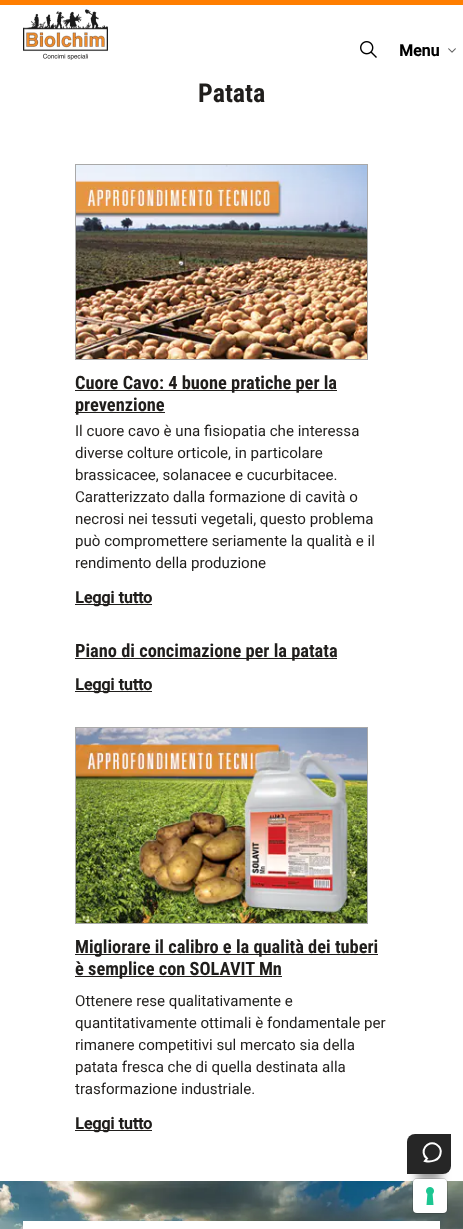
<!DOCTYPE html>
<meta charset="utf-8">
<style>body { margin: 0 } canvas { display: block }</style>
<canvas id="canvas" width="463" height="1229"></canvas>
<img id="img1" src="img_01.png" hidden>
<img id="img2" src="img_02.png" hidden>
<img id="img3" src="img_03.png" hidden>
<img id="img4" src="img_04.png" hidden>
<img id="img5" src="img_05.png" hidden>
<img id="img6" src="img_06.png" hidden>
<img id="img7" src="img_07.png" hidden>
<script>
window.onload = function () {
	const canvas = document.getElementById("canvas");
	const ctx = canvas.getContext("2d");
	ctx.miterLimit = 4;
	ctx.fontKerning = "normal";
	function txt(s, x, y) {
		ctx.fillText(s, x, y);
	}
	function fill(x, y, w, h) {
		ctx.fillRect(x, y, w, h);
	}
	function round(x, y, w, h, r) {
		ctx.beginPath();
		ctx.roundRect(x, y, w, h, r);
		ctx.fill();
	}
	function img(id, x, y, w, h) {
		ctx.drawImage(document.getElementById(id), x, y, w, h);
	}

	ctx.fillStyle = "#FFFFFF";
	fill(0, 0, 463, 1229);
	ctx.fillStyle = "#FF7E00";
	fill(0, 0, 463, 5);
	img("img1", 23, 9, 85, 51);
	img("img2", 360, 41, 17, 17);
	img("img3", 448, 48, 8, 5);
	ctx.strokeStyle = "#A9A9A9";
	ctx.strokeRect(75.5, 164.5, 292, 195);
	img("img4", 76, 165, 291, 194);
	ctx.fillStyle = "#201E1C";
	fill(75, 390, 262, 1);
	fill(75, 412, 90, 1);
	fill(75, 604, 77, 1);
	fill(75, 658, 262, 1);
	fill(75, 691, 77, 1);
	ctx.strokeRect(75.5, 727.5, 292, 196);
	img("img5", 76, 728, 291, 195);
	fill(75, 954, 303, 1);
	fill(75, 976, 207, 1);
	fill(75, 1130, 77, 1);
	img("img6", 0, 1181, 463, 48);
	ctx.fillStyle = "#FFFFFF";
	fill(23, 1221, 417, 8);
	ctx.save();
	ctx.beginPath();
	ctx.moveTo(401, 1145);
	ctx.lineTo(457, 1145);
	ctx.lineTo(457, 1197);
	ctx.lineTo(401, 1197);
	ctx.closePath();
	ctx.moveTo(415, 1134);
	ctx.lineTo(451, 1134);
	ctx.lineTo(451, 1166);
	ctx.bezierCurveTo(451, 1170.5, 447.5, 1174, 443, 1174);
	ctx.lineTo(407, 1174);
	ctx.lineTo(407, 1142);
	ctx.bezierCurveTo(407, 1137.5, 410.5, 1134, 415, 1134);
	ctx.closePath();
	ctx.clip("evenodd");
	ctx.fillStyle = "rgba(0, 0, 0, 0.4)";
	ctx.filter = "blur(5px)";
	ctx.beginPath();
	ctx.rect(417, 1161, 24, 20);
	ctx.fill();
	ctx.filter = "none";
	ctx.restore();
	ctx.fillStyle = "rgba(0, 0, 0, 0.85)";
	ctx.beginPath();
	ctx.roundRect(407, 1134, 44, 40, [8, 0, 8, 0]);
	ctx.fill();
	ctx.beginPath();
	ctx.moveTo(440.5, 1153.5);
	ctx.bezierCurveTo(441.5, 1149.5, 439.5, 1146.5, 436.5, 1144.5);
	ctx.bezierCurveTo(427.5, 1139, 418.5, 1152, 427, 1158.5);
	ctx.lineTo(425, 1161);
	ctx.bezierCurveTo(431, 1162.5, 439.5, 1160.5, 440.5, 1153.5);
	ctx.closePath();
	ctx.strokeStyle = "#FFFFFF";
	ctx.lineWidth = 2;
	ctx.stroke();
	ctx.beginPath();
	ctx.roundRect(412.5, 1178.5, 35, 35, 4.5);
	ctx.strokeStyle = "rgba(0, 0, 0, 0.15)";
	ctx.lineWidth = 1;
	ctx.stroke();
	ctx.fillStyle = "#FFFFFF";
	round(413, 1179, 34, 34, 4);
	img("img7", 426, 1187, 8, 18);
	ctx.font = "bold 16px Roboto";
	ctx.fillStyle = "#000000";
	txt("Menu", 399, 56);
	ctx.font = "bold 26px Roboto Condensed";
	ctx.fillStyle = "#201E1C";
	txt("Patata", 198, 102);
	ctx.font = "bold 18.4px Roboto Condensed";
	txt("Cuore Cavo: 4 buone pratiche per la", 75, 389);
	txt("prevenzione", 75, 411);
	ctx.font = "15.1px Roboto";
	txt("Il cuore cavo è una fisiopatia che interessa", 75, 436);
	txt("diverse colture orticole, in particolare", 75, 458);
	txt("brassicacee, solanacee e cucurbitacee.", 75, 480);
	txt("Caratterizzato dalla formazione di cavità o", 75, 502);
	txt("necrosi nei tessuti vegetali, questo problema", 75, 524);
	txt("può compromettere seriamente la qualità e il", 75, 546);
	txt("rendimento della produzione", 75, 568);
	ctx.font = "bold 16px Roboto";
	txt("Leggi tutto", 75, 603);
	ctx.font = "bold 18.4px Roboto Condensed";
	txt("Piano di concimazione per la patata", 75, 657);
	ctx.font = "bold 16px Roboto";
	txt("Leggi tutto", 75, 690);
	ctx.font = "bold 18.4px Roboto Condensed";
	txt("Migliorare il calibro e la qualità dei tuberi", 75, 953);
	txt("è semplice con SOLAVIT Mn", 75, 975);
	ctx.font = "15.1px Roboto";
	txt("Ottenere rese qualitativamente e", 75, 1006);
	txt("quantitativamente ottimali è fondamentale per", 75, 1028);
	txt("rimanere competitivi sul mercato sia della", 75, 1050);
	txt("patata fresca che di quella destinata alla", 75, 1072);
	txt("trasformazione industriale.", 75, 1094);
	ctx.font = "bold 16px Roboto";
	txt("Leggi tutto", 75, 1129);
};
</script>
